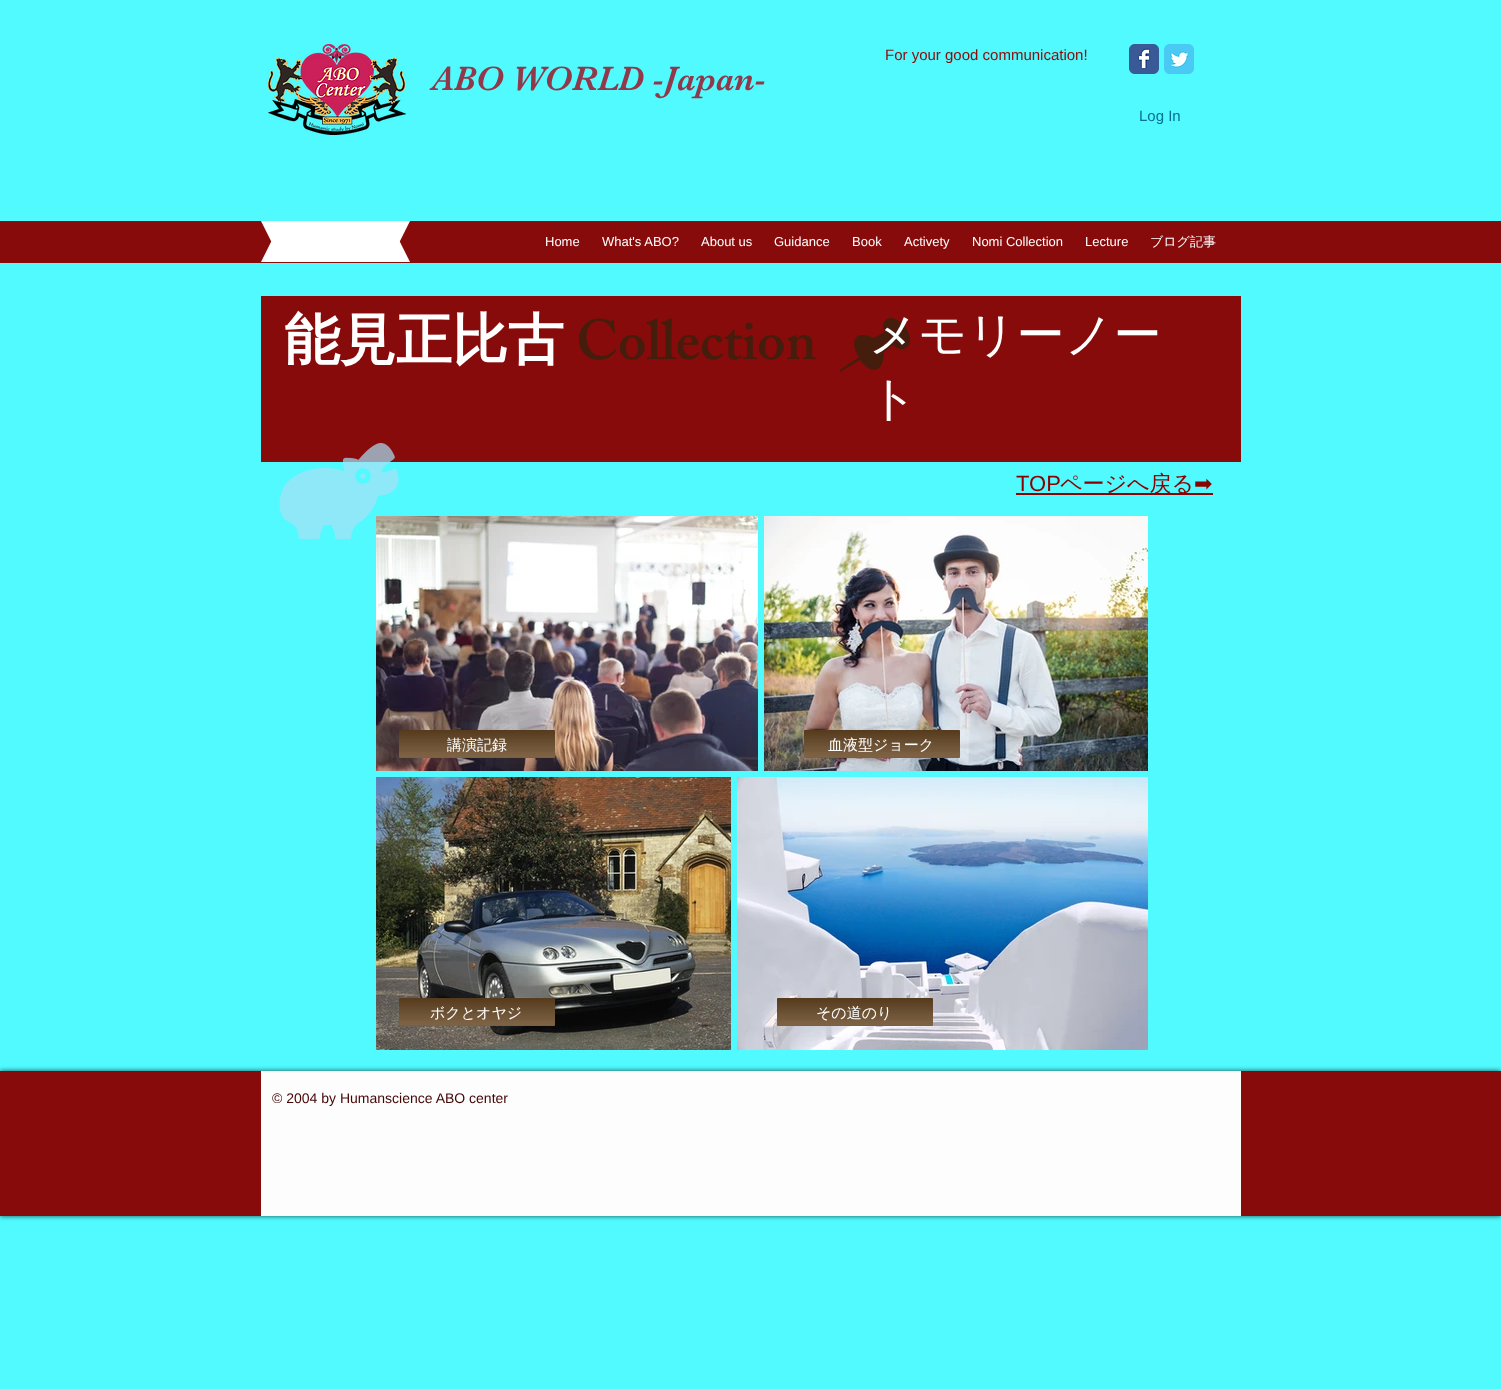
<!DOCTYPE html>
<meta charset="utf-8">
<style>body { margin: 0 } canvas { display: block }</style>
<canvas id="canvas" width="1501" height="1389"></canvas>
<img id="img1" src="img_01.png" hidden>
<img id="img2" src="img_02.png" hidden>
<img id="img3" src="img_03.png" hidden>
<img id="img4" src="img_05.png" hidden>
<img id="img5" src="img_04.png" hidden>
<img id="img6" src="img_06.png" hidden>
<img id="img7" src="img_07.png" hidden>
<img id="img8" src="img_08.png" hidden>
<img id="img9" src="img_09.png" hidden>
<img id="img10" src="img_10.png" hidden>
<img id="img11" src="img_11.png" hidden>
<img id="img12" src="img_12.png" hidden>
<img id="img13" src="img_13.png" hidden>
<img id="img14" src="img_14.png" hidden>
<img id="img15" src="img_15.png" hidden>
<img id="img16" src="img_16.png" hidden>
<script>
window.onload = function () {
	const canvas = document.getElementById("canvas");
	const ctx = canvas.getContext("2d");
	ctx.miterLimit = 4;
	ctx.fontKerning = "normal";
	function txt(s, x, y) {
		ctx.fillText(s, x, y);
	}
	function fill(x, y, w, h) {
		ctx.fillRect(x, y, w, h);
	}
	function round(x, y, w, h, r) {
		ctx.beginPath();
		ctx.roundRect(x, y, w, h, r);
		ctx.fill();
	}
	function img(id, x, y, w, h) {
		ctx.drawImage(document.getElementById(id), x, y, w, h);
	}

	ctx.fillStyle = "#50FAFE";
	fill(0, 0, 1501, 1389);
	img("img1", 268, 44, 138, 91);
	img("img2", 1129, 44, 30, 30);
	img("img3", 1164, 44, 30, 30);
	ctx.fillStyle = "#880B0B";
	fill(0, 221, 1501, 42);
	ctx.save();
	ctx.beginPath();
	ctx.rect(261, 221, 75, 21);
	ctx.clip();
	ctx.fillStyle = "#FFFFFF";
	ctx.beginPath();
	ctx.moveTo(261, 221);
	ctx.lineTo(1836, 221);
	ctx.lineTo(836, 1221);
	ctx.lineTo(761, 1221);
	ctx.closePath();
	ctx.fill();
	ctx.restore();
	ctx.save();
	ctx.beginPath();
	ctx.rect(335, 221, 75, 21);
	ctx.clip();
	ctx.fillStyle = "#FFFFFF";
	ctx.beginPath();
	ctx.moveTo(-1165, 221);
	ctx.lineTo(410, 221);
	ctx.lineTo(-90, 1221);
	ctx.lineTo(-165, 1221);
	ctx.closePath();
	ctx.fill();
	ctx.restore();
	ctx.save();
	ctx.beginPath();
	ctx.rect(261, 241, 75, 21);
	ctx.clip();
	ctx.fillStyle = "#FFFFFF";
	ctx.beginPath();
	ctx.moveTo(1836, 262);
	ctx.lineTo(261, 262);
	ctx.lineTo(761, -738);
	ctx.lineTo(836, -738);
	ctx.closePath();
	ctx.fill();
	ctx.restore();
	ctx.save();
	ctx.beginPath();
	ctx.rect(335, 241, 75, 21);
	ctx.clip();
	ctx.fillStyle = "#FFFFFF";
	ctx.beginPath();
	ctx.moveTo(410, 262);
	ctx.lineTo(-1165, 262);
	ctx.lineTo(-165, -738);
	ctx.lineTo(-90, -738);
	ctx.closePath();
	ctx.fill();
	ctx.restore();
	fill(261, 296, 980, 166);
	ctx.fillStyle = "#451D0D";
	ctx.beginPath();
	ctx.moveTo(906, 328);
	ctx.bezierCurveTo(900, 320, 892, 316, 887, 319);
	ctx.bezierCurveTo(880, 324, 885, 332, 885, 332);
	ctx.lineTo(874, 338);
	ctx.bezierCurveTo(855, 329, 849, 341, 859, 357);
	ctx.lineTo(840, 370);
	ctx.bezierCurveTo(840, 371, 839, 372, 840, 372);
	ctx.lineTo(860, 360);
	ctx.bezierCurveTo(872, 376, 884, 372, 884, 352);
	ctx.lineTo(893, 345);
	ctx.bezierCurveTo(893, 345, 900, 352, 906, 348);
	ctx.bezierCurveTo(913, 343, 910, 335, 906, 328);
	ctx.closePath();
	ctx.fill();
	img("img4", 376, 516, 382, 255);
	img("img5", 279, 443, 120, 96);
	ctx.fillStyle = "#8B0000";
	fill(1016, 493, 197, 2);
	img("img6", 764, 516, 384, 255);
	img("img7", 376, 777, 355, 273);
	img("img8", 737, 777, 411, 273);
	ctx.fillStyle = "#5E3C17";
	round(399, 730, 156, 28, 1);
	img("img9", 399, 730, 156, 22);
	img("img10", 399, 730, 156, 28);
	round(804, 730, 156, 28, 1);
	img("img11", 804, 730, 156, 22);
	img("img12", 804, 730, 156, 28);
	round(399, 998, 156, 28, 1);
	img("img13", 399, 998, 156, 22);
	img("img14", 399, 998, 156, 28);
	round(777, 998, 156, 28, 1);
	img("img15", 777, 998, 156, 22);
	img("img16", 777, 998, 156, 28);
	ctx.fillStyle = "rgba(0, 0, 0, 0.7)";
	ctx.filter = "blur(2.5px)";
	ctx.beginPath();
	ctx.rect(0, 1071, 1501, 145);
	ctx.fill();
	ctx.filter = "none";
	ctx.fillStyle = "#880B0B";
	fill(0, 1071, 1501, 145);
	ctx.fillStyle = "#FEFDFD";
	fill(261, 1071, 980, 145);
	ctx.font = "15px Liberation Sans";
	ctx.fillStyle = "#880B0B";
	txt("For your good communication!", 885, 60);
	ctx.font = "35px 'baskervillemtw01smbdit'";
	ctx.fillStyle = "#91384A";
	txt("ABO WORLD -Japan-", 432, 90);
	ctx.font = "15px Liberation Sans";
	ctx.fillStyle = "#087095";
	txt("Log In", 1139, 121);
	ctx.font = "13px Liberation Sans";
	ctx.fillStyle = "#FFFFFF";
	txt("Home", 545, 246);
	txt("What's ABO?", 602, 246);
	txt("About us", 701, 246);
	txt("Guidance", 774, 246);
	txt("Book", 852, 246);
	txt("Activety", 904, 246);
	txt("Nomi Collection", 972, 246);
	txt("Lecture", 1085, 246);
	ctx.font = "500 13px WenQuanYi Zen Hei";
	txt("ブログ記事", 1150, 246);
	ctx.font = "bold 56px WenQuanYi Zen Hei";
	txt("能見正比古", 284, 359);
	ctx.font = "600 56px 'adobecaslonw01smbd'";
	ctx.fillStyle = "#451D0D";
	txt("Collection", 576, 359);
	ctx.font = "500 48px WenQuanYi Zen Hei";
	ctx.fillStyle = "#FFFFFF";
	txt("メモリーノー", 869, 351);
	txt("ト", 869, 415);
	ctx.font = "22px Liberation Sans";
	ctx.fillStyle = "#8B0000";
	txt("TOP", 1016, 491);
	ctx.font = "500 22px WenQuanYi Zen Hei";
	txt("ページへ戻る", 1060, 491);
	ctx.font = "22px DejaVu Sans";
	txt("➡", 1194, 491);
	ctx.font = "500 15px WenQuanYi Zen Hei";
	ctx.fillStyle = "#FFFFFF";
	txt("講演記録", 447, 750);
	txt("血液型ジョーク", 828, 750);
	txt("ボクとオヤジ", 430, 1018);
	txt("その道のり", 816, 1018);
	ctx.font = "14px Liberation Sans";
	ctx.fillStyle = "#440505";
	txt("© 2004 by Humanscience ABO center", 272, 1103);
};
</script>
